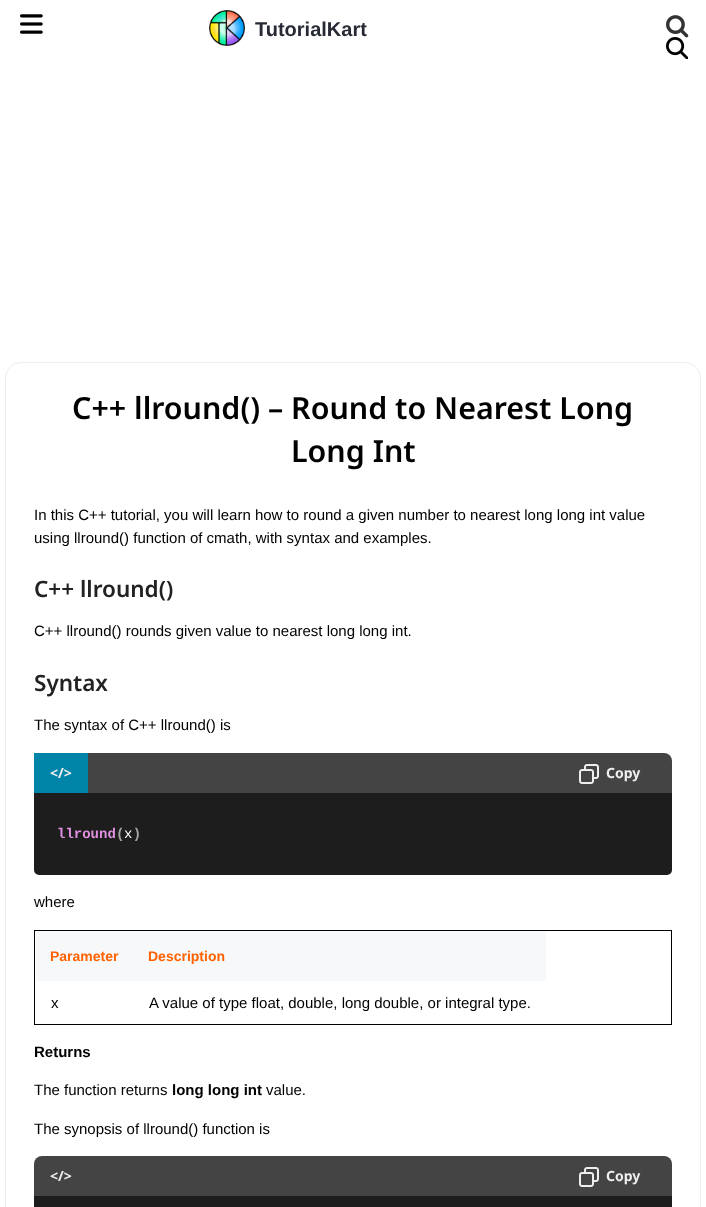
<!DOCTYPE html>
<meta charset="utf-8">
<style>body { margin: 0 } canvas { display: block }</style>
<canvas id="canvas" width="706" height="1207"></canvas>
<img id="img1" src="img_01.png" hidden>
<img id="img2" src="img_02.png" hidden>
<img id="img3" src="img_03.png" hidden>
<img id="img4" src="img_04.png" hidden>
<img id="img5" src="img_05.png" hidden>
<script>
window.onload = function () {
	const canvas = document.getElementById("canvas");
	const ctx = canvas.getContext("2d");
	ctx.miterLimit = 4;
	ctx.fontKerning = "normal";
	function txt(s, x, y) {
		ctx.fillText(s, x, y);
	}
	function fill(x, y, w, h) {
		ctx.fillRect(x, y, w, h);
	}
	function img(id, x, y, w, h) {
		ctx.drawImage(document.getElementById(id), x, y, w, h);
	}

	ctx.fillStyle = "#FFFFFF";
	fill(0, 0, 706, 1207);
	img("img1", 20, 14, 23, 20);
	img("img2", 209, 10, 36, 36);
	img("img3", 666, 15, 23, 23);
	img("img4", 666, 37, 22, 22);
	ctx.beginPath();
	ctx.roundRect(5.5, 362.5, 695, 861, 15.5);
	ctx.strokeStyle = "#EEEEEE";
	ctx.stroke();
	ctx.fillStyle = "#444444";
	ctx.beginPath();
	ctx.roundRect(34, 753, 638, 40, [8, 8, 0, 0]);
	ctx.fill();
	ctx.fillStyle = "#0084A7";
	fill(34, 753, 54, 40);
	img("img5", 579, 764, 20, 20);
	ctx.fillStyle = "#1D1D1D";
	ctx.beginPath();
	ctx.roundRect(35, 794, 636, 80, [0, 0, 4, 4]);
	ctx.fill();
	ctx.strokeStyle = "#1D1D1D";
	ctx.lineWidth = 2;
	ctx.stroke();
	ctx.strokeStyle = "#000000";
	ctx.lineWidth = 1;
	ctx.strokeRect(34.5, 930.5, 637, 94);
	ctx.fillStyle = "#F7F8F9";
	fill(36, 931, 510, 50);
	ctx.fillStyle = "#444444";
	ctx.beginPath();
	ctx.roundRect(34, 1156, 638, 40, [8, 8, 0, 0]);
	ctx.fill();
	img("img5", 579, 1167, 20, 20);
	ctx.fillStyle = "#1D1D1D";
	fill(34, 1196, 638, 11);
	ctx.font = "bold 20px Liberation Sans";
	ctx.fillStyle = "#272A35";
	txt("TutorialKart", 255, 36);
	ctx.font = "600 30.4px Noto Sans";
	ctx.fillStyle = "#000000";
	txt("C++ llround() – Round to Nearest Long", 72, 419);
	txt("Long Int", 291, 462);
	ctx.font = "15px Liberation Sans";
	txt("In this C++ tutorial, you will learn how to round a given number to nearest long long int value", 34, 520);
	txt("using llround() function of cmath, with syntax and examples.", 34, 543);
	ctx.font = "600 22.5px Noto Sans";
	ctx.fillStyle = "#222222";
	txt("C++ llround()", 34, 597);
	ctx.font = "15px Liberation Sans";
	ctx.fillStyle = "#000000";
	txt("C++ llround() rounds given value to nearest long long int.", 34, 636);
	ctx.font = "600 22.5px Noto Sans";
	ctx.fillStyle = "#222222";
	txt("Syntax", 34, 691);
	ctx.font = "15px Liberation Sans";
	ctx.fillStyle = "#000000";
	txt("The syntax of C++ llround() is", 34, 730);
	ctx.font = "bold 14px Noto Sans";
	ctx.fillStyle = "#EEEEEE";
	txt("<\/>", 50, 778);
	txt("Copy", 606, 778);
	ctx.font = "bold 14px Liberation Mono";
	ctx.fillStyle = "#DF90DF";
	txt("llround", 57, 838);
	ctx.font = "14px Liberation Mono";
	ctx.fillStyle = "#FFFFFF";
	txt("x", 124, 838);
	ctx.font = "bold 14px Liberation Mono";
	ctx.fillStyle = "#A3A3A3";
	txt("( )", 116, 838);
	ctx.font = "15px Liberation Sans";
	ctx.fillStyle = "#000000";
	txt("where", 34, 907);
	ctx.font = "bold 14px Liberation Sans";
	ctx.fillStyle = "#FF6200";
	txt("Parameter", 50, 961);
	txt("Description", 148, 961);
	ctx.font = "15px Liberation Sans";
	ctx.fillStyle = "#000000";
	txt("x", 51, 1008);
	txt("A value of type float, double, long double, or integral type.", 149, 1008);
	ctx.font = "bold 15px Liberation Sans";
	txt("Returns", 34, 1057);
	ctx.font = "15px Liberation Sans";
	txt("The function returns", 34, 1095);
	ctx.font = "bold 15px Liberation Sans";
	txt("long long int", 172, 1095);
	ctx.font = "15px Liberation Sans";
	txt("value.", 266, 1095);
	txt("The synopsis of llround() function is", 34, 1134);
	ctx.font = "bold 14px Noto Sans";
	ctx.fillStyle = "#EEEEEE";
	txt("<\/>", 50, 1181);
	txt("Copy", 606, 1181);
};
</script>
